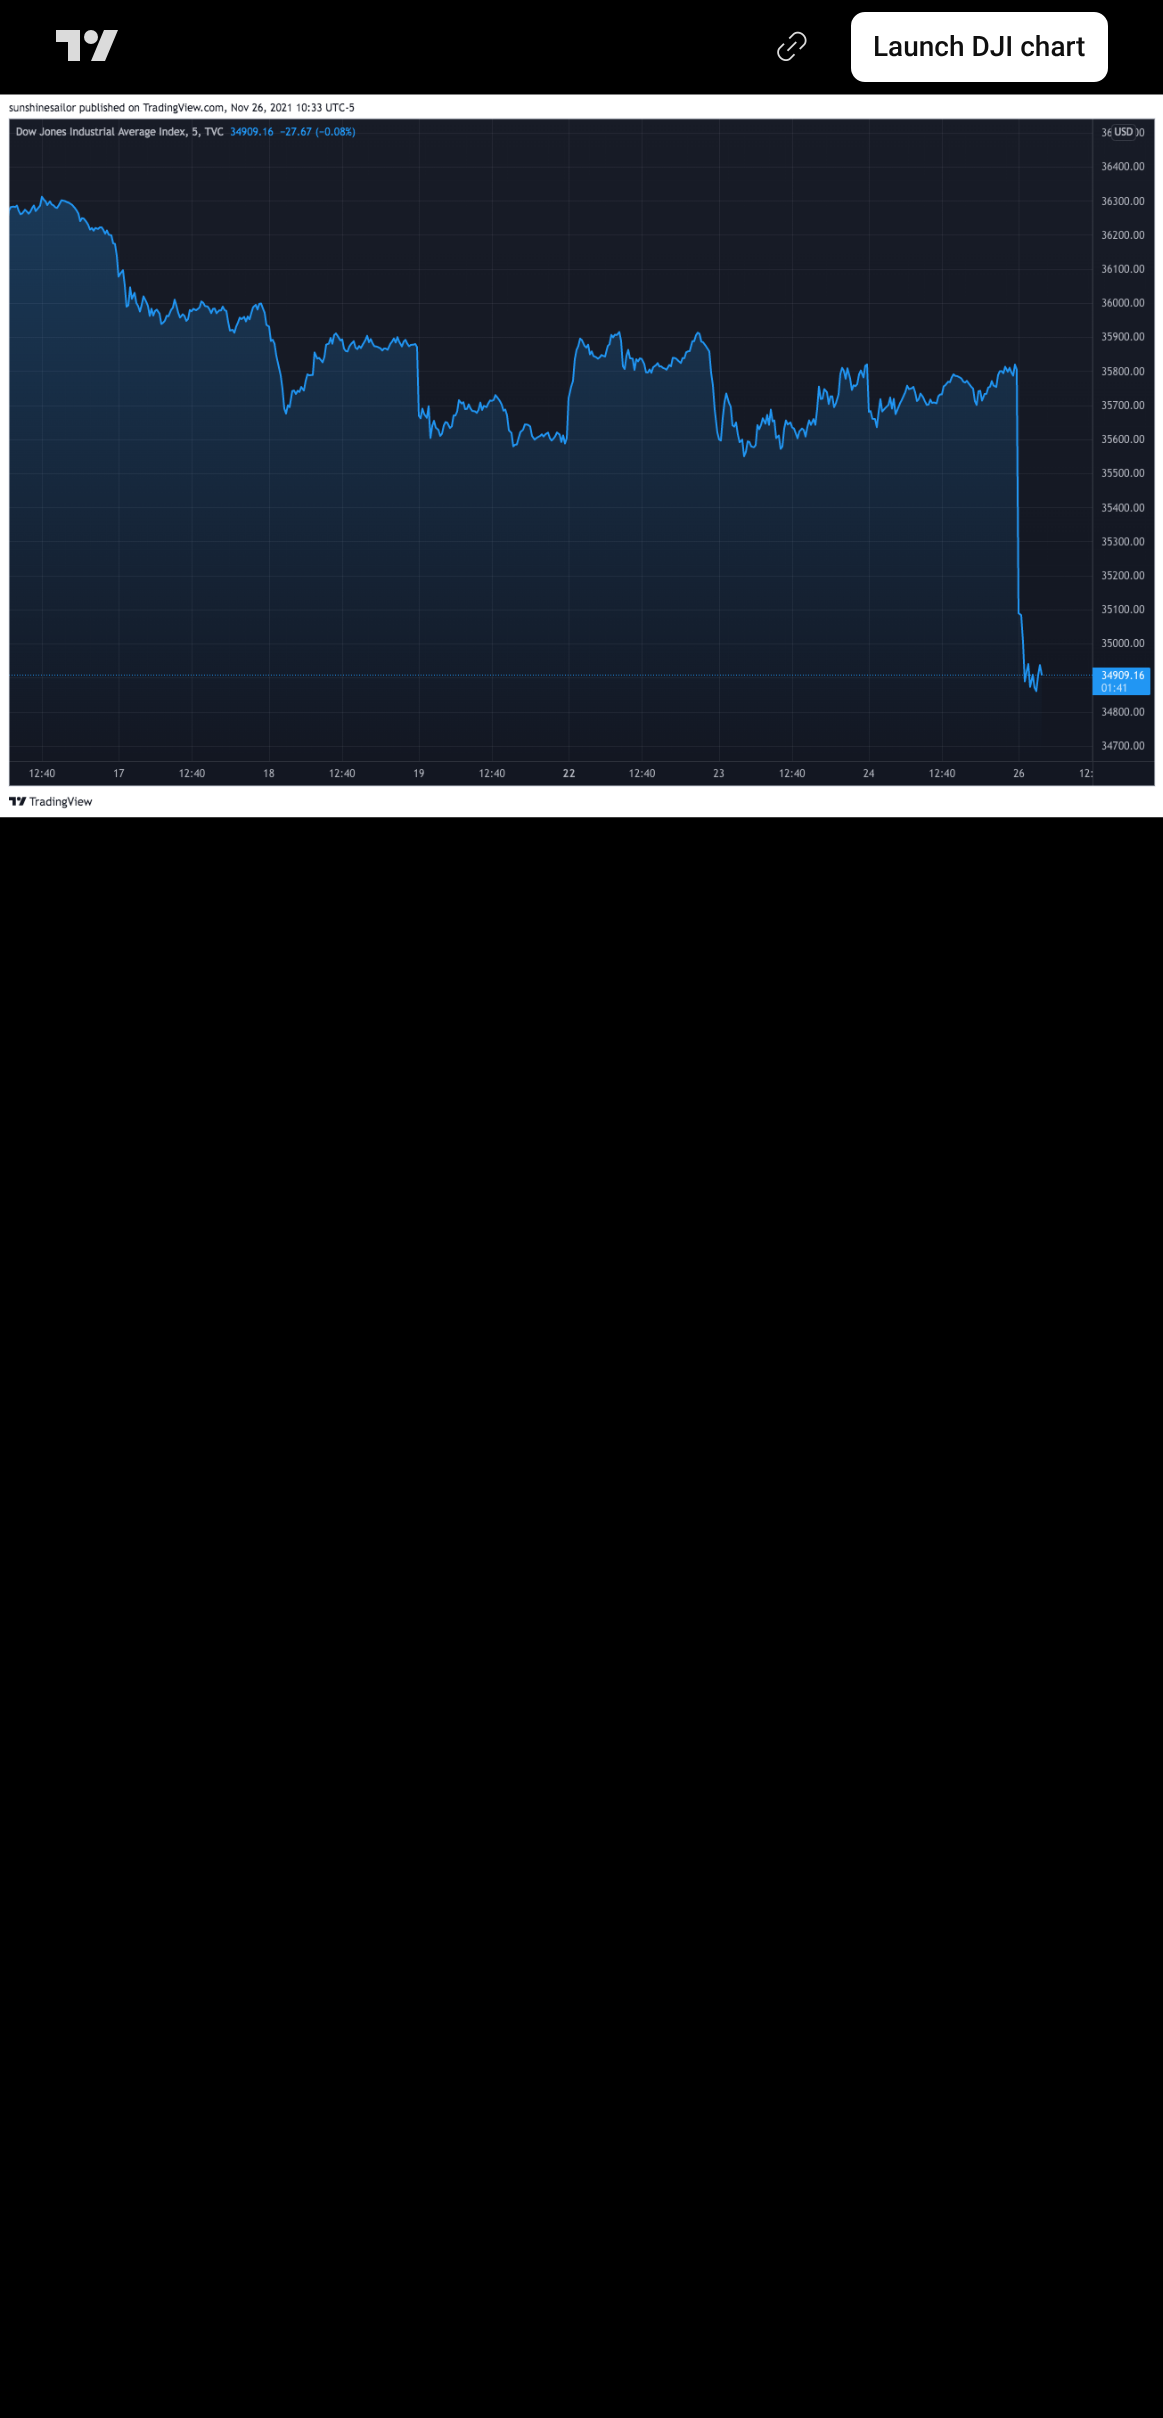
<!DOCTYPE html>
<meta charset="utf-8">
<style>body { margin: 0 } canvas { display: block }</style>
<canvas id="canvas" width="1163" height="2418"></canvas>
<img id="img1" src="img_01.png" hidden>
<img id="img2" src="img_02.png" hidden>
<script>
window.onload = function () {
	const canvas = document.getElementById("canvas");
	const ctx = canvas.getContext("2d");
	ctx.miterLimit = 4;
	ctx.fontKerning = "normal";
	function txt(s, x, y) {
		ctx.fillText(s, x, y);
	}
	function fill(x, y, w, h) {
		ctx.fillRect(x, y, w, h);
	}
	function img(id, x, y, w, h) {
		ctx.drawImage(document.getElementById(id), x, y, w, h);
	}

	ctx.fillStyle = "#000000";
	fill(0, 0, 1163, 2418);
	ctx.fillStyle = "#DBDBDB";
	ctx.beginPath();
	ctx.moveTo(80, 61);
	ctx.lineTo(68, 61);
	ctx.lineTo(68, 42);
	ctx.lineTo(56, 42);
	ctx.lineTo(56, 30);
	ctx.lineTo(80, 30);
	ctx.closePath();
	ctx.moveTo(105, 61);
	ctx.lineTo(91, 61);
	ctx.lineTo(104, 30);
	ctx.lineTo(118, 30);
	ctx.closePath();
	ctx.fill();
	ctx.beginPath();
	ctx.arc(91, 37, 7, 0, Math.PI * 2);
	ctx.fill();
	img("img1", 777, 31, 30, 30);
	ctx.fillStyle = "#FFFFFF";
	ctx.beginPath();
	ctx.roundRect(852, 13, 255, 68, 13);
	ctx.fill();
	ctx.strokeStyle = "#FFFFFF";
	ctx.lineWidth = 2;
	ctx.stroke();
	img("img2", 0, 94, 1163, 724);
	ctx.font = "500 28px Roboto";
	ctx.fillStyle = "#0F0F0F";
	txt("Launch DJI chart", 873, 56);
};
</script>
